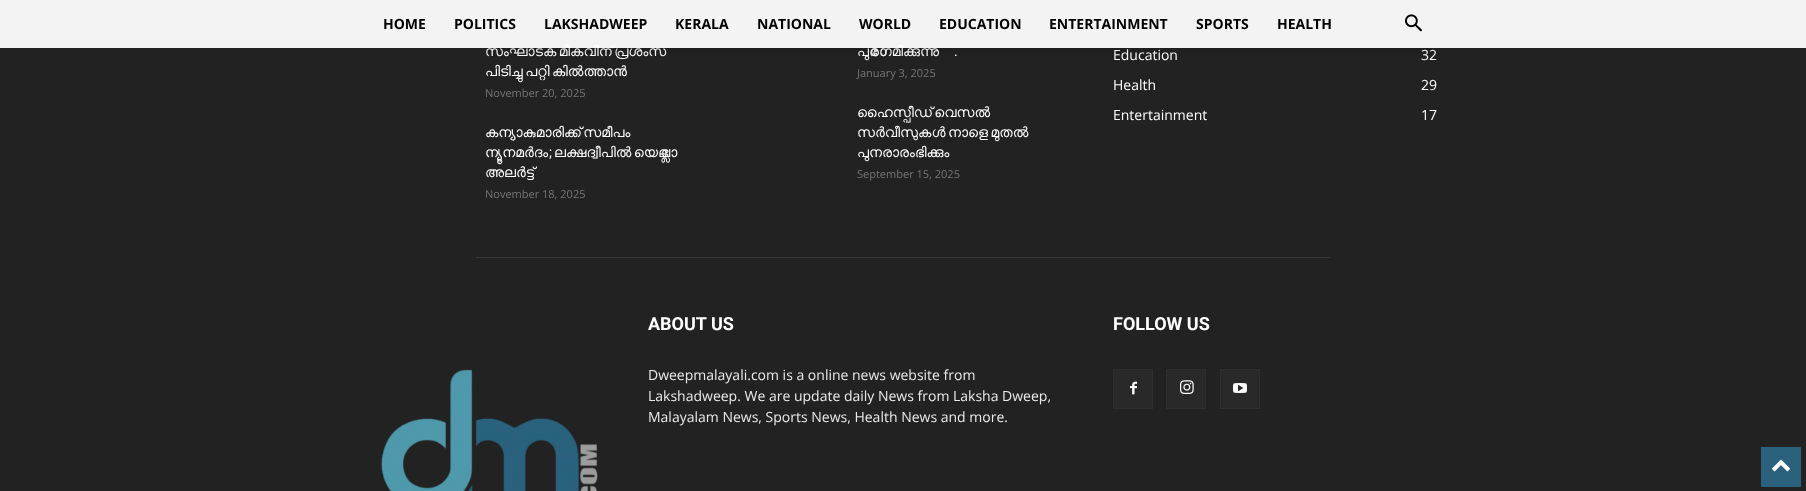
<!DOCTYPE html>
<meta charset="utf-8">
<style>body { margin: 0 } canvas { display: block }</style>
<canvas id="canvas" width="1806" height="491"></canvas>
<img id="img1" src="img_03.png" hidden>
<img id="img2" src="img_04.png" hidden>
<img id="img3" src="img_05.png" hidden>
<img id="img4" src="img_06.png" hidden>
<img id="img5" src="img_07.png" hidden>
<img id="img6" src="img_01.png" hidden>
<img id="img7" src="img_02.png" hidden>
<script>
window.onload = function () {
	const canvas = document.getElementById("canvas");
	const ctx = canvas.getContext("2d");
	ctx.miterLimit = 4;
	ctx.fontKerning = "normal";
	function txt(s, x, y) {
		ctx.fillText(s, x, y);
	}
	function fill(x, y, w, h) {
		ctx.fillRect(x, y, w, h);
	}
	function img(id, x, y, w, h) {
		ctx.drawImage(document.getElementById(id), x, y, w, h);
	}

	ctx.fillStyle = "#222222";
	fill(0, 0, 1806, 491);
	ctx.fillStyle = "#383838";
	fill(476, 257, 854, 1);
	ctx.fillStyle = "#292929";
	fill(1114, 370, 38, 38);
	img("img1", 1130, 381, 7, 14);
	ctx.strokeStyle = "#2F2F2F";
	ctx.strokeRect(1113.5, 369.5, 39, 39);
	fill(1167, 370, 38, 38);
	img("img2", 1180, 380, 14, 14);
	ctx.strokeRect(1166.5, 369.5, 39, 39);
	fill(1221, 370, 38, 38);
	img("img3", 1233, 383, 14, 10);
	ctx.strokeRect(1220.5, 369.5, 39, 39);
	img("img4", 381, 369, 217, 122);
	ctx.fillStyle = "#2A627E";
	fill(1761, 447, 40, 40);
	img("img5", 1772, 459, 18, 13);
	ctx.wordSpacing = "-1px";
	ctx.font = "14px FreeSans";
	ctx.fillStyle = "#FFFFFF";
	txt("സംഘാടക മികവിന് പ്രശംസ", 485, 56);
	txt("പിടിച്ചു പറ്റി കിൽത്താൻ", 485, 76);
	ctx.wordSpacing = "0px";
	ctx.font = "11px Open Sans";
	ctx.fillStyle = "#767676";
	txt("November 20, 2025", 485, 97);
	ctx.wordSpacing = "-1px";
	ctx.font = "14px FreeSans";
	ctx.fillStyle = "#FFFFFF";
	txt("കന്യാകുമാരിക്ക് സമീപം", 485, 137);
	ctx.wordSpacing = "0px";
	txt("ന്യൂനമർദം", 485, 157);
	ctx.font = "14px Roboto";
	txt(";", 549, 157);
	ctx.wordSpacing = "-1px";
	ctx.font = "14px FreeSans";
	txt("ലക്ഷദ്വീപിൽ യെല്ലോ", 554, 157);
	ctx.wordSpacing = "0px";
	txt("അലർട്ട്", 485, 177);
	ctx.font = "11px Open Sans";
	ctx.fillStyle = "#767676";
	txt("November 18, 2025", 485, 198);
	ctx.font = "14px FreeSans";
	ctx.fillStyle = "#FFFFFF";
	txt("പുരോഗമിക്കുന്നു", 857, 56);
	ctx.fillStyle = "rgba(255, 255, 255, 0.95)";
	fill(0, 0, 1806, 48);
	img("img6", 1405, 14, 17, 18);
	ctx.font = "bold 14px Open Sans";
	ctx.fillStyle = "#000000";
	txt("HEALTH", 1277, 29);
	txt("SPORTS", 1196, 29);
	txt("ENTERTAINMENT", 1049, 29);
	txt("EDUCATION", 939, 29);
	txt("WORLD", 859, 29);
	txt("NATIONAL", 757, 29);
	txt("KERALA", 675, 29);
	txt("LAKSHADWEEP", 544, 29);
	txt("POLITICS", 454, 29);
	txt("HOME", 383, 29);
	ctx.font = "14px Roboto";
	ctx.fillStyle = "#FFFFFF";
	txt(".", 954, 56);
	ctx.font = "11px Open Sans";
	ctx.fillStyle = "#767676";
	txt("January 3, 2025", 857, 77);
	ctx.wordSpacing = "-1px";
	ctx.font = "14px FreeSans";
	ctx.fillStyle = "#FFFFFF";
	txt("ഹൈസ്പീഡ് വെസൽ", 857, 117);
	txt("സർവീസുകൾ നാളെ മുതൽ", 857, 137);
	ctx.wordSpacing = "0px";
	txt("പുനരാരംഭിക്കും", 857, 157);
	ctx.font = "11px Open Sans";
	ctx.fillStyle = "#767676";
	txt("September 15, 2025", 857, 178);
	ctx.font = "14px Open Sans";
	ctx.fillStyle = "#FFFFFF";
	txt("Education", 1113, 60);
	txt("32", 1421, 60);
	img("img7", 486, 48, 950, 9);
	txt("Health", 1113, 90);
	txt("29", 1421, 90);
	txt("Entertainment", 1113, 120);
	txt("17", 1421, 120);
	ctx.font = "bold 18px Roboto";
	txt("ABOUT US", 648, 330);
	ctx.font = "14px Open Sans";
	ctx.fillStyle = "#EAEAEA";
	txt("Dweepmalayali.com is a online news website from", 648, 380);
	txt("Lakshadweep. We are update daily News from Laksha Dweep,", 648, 401);
	txt("Malayalam News, Sports News, Health News and more.", 648, 422);
	ctx.font = "bold 18px Roboto";
	ctx.fillStyle = "#FFFFFF";
	txt("FOLLOW US", 1113, 330);
};
</script>
